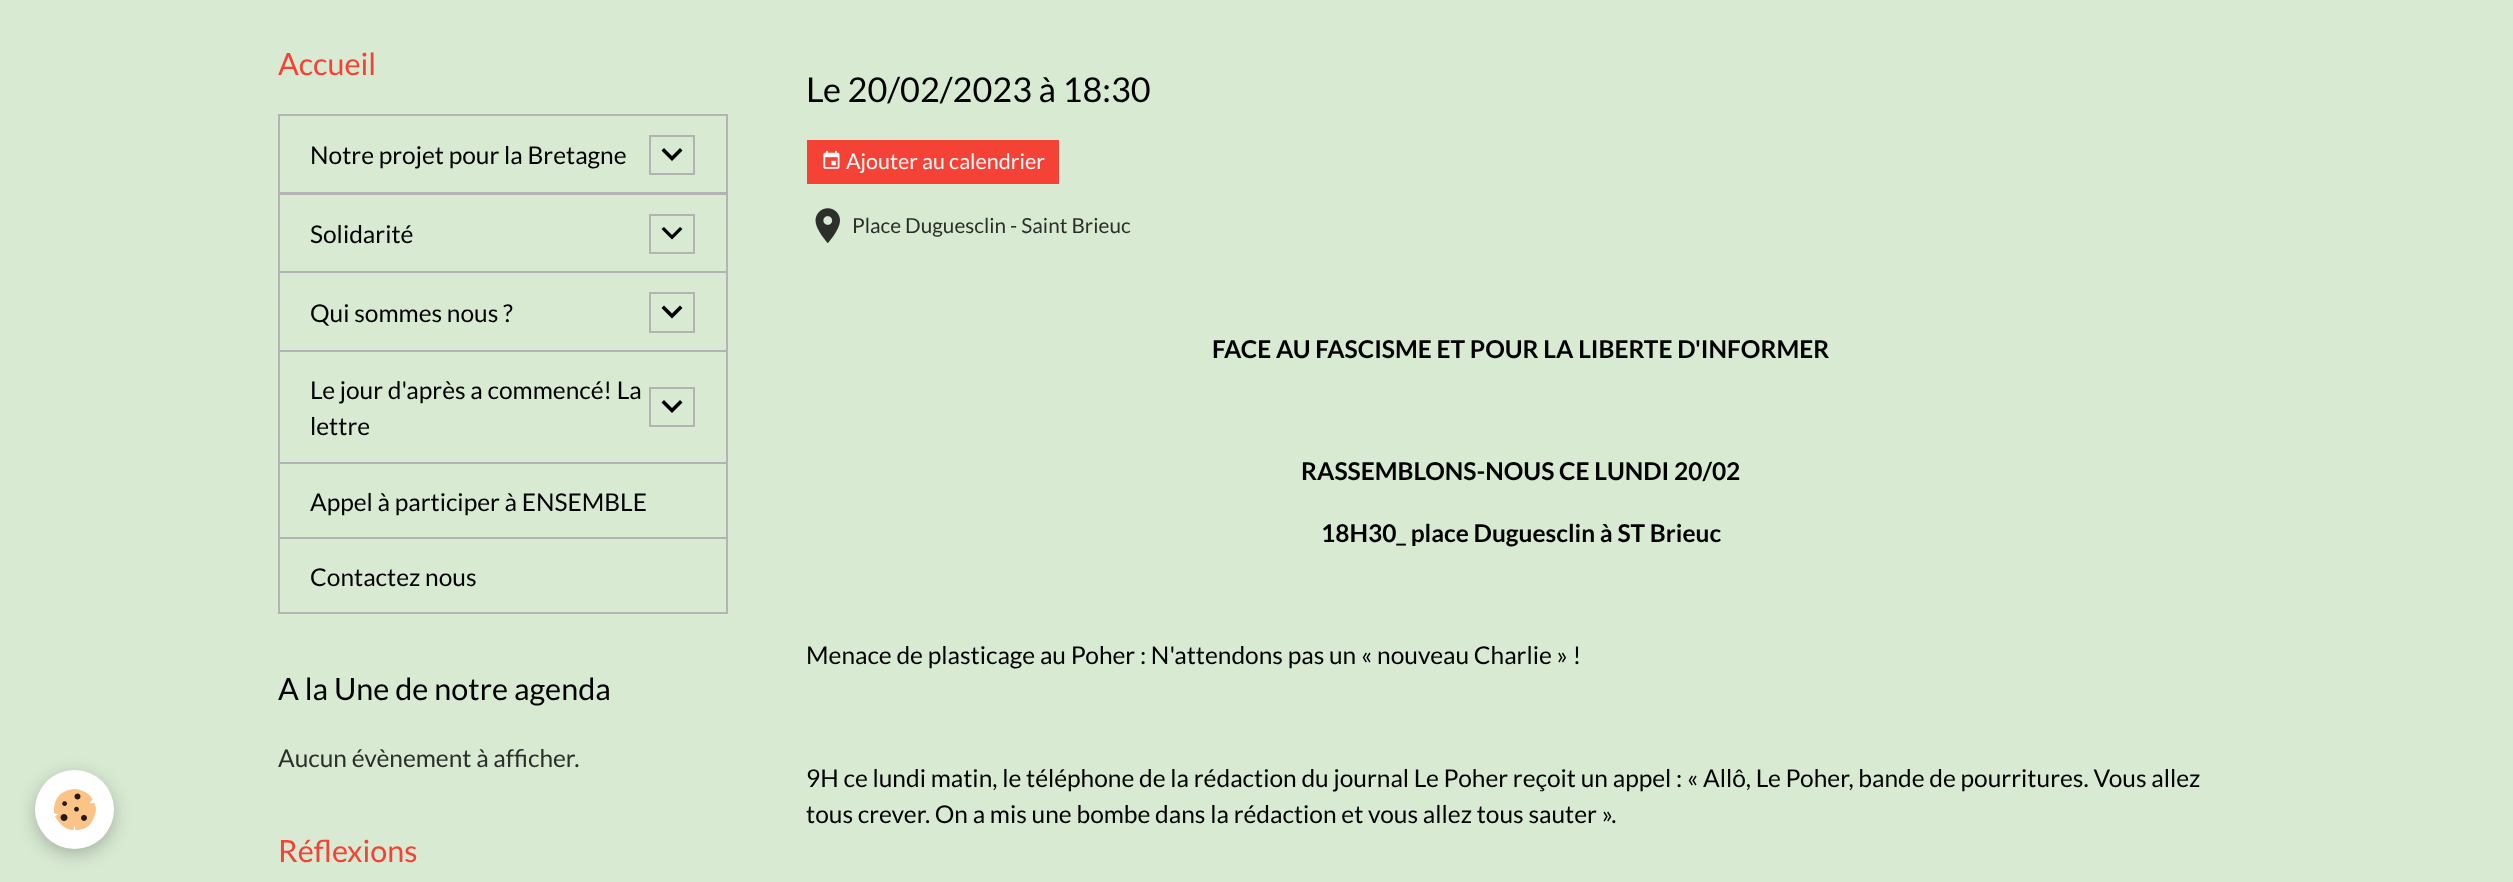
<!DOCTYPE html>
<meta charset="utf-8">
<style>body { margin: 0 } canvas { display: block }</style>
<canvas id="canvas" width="2513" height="882"></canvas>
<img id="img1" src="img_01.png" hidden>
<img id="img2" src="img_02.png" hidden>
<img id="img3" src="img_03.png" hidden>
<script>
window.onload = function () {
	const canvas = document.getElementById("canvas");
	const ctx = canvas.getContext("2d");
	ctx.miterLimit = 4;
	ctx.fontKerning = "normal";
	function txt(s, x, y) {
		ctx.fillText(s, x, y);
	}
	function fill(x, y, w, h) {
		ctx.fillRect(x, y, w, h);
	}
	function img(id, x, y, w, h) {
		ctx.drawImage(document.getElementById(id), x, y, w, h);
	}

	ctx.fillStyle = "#D9EAD3";
	fill(0, 0, 2513, 882);
	ctx.fillStyle = "rgba(0, 0, 0, 0.24)";
	ctx.filter = "blur(9px)";
	ctx.beginPath();
	ctx.roundRect(35, 775, 79, 79, 39.5);
	ctx.fill();
	ctx.filter = "none";
	ctx.fillStyle = "#FFFFFF";
	ctx.beginPath();
	ctx.arc(74.5, 809.5, 39.5, 0, Math.PI * 2);
	ctx.fill();
	img("img1", 53, 789, 43, 42);
	ctx.strokeStyle = "#B3B3B3";
	ctx.lineWidth = 2;
	ctx.strokeRect(279, 115, 448, 78);
	ctx.strokeRect(650, 136, 44, 38);
	ctx.fillStyle = "#000000";
	ctx.beginPath();
	ctx.moveTo(680, 148);
	ctx.lineTo(682.5, 150.5);
	ctx.lineTo(672, 161);
	ctx.lineTo(661.5, 150.5);
	ctx.lineTo(664, 148);
	ctx.lineTo(672, 156);
	ctx.closePath();
	ctx.fill();
	ctx.strokeRect(279, 194, 448, 78);
	ctx.strokeRect(650, 215, 44, 38);
	ctx.beginPath();
	ctx.moveTo(680, 227);
	ctx.lineTo(682.5, 229);
	ctx.lineTo(672, 239.5);
	ctx.lineTo(661.5, 229);
	ctx.lineTo(664, 227);
	ctx.lineTo(672, 235);
	ctx.closePath();
	ctx.fill();
	ctx.strokeRect(279, 272, 448, 79);
	ctx.strokeRect(650, 293, 44, 39);
	ctx.beginPath();
	ctx.moveTo(680, 305.5);
	ctx.lineTo(682.5, 308);
	ctx.lineTo(672, 318.5);
	ctx.lineTo(661.5, 308);
	ctx.lineTo(664, 305.5);
	ctx.lineTo(672, 313.5);
	ctx.closePath();
	ctx.fill();
	ctx.strokeRect(279, 351, 448, 112);
	ctx.strokeRect(650, 388, 44, 38);
	ctx.beginPath();
	ctx.moveTo(680, 400);
	ctx.lineTo(682.5, 402.5);
	ctx.lineTo(672, 413);
	ctx.lineTo(661.5, 402.5);
	ctx.lineTo(664, 400);
	ctx.lineTo(672, 408);
	ctx.closePath();
	ctx.fill();
	ctx.strokeRect(279, 463, 448, 75);
	ctx.strokeRect(279, 538, 448, 75);
	ctx.fillStyle = "#F44336";
	fill(807, 140, 252, 44);
	img("img2", 823, 150, 17, 19);
	img("img3", 815, 208, 25, 36);
	ctx.font = "30.6px Lato";
	txt("Accueil", 278, 75);
	ctx.font = "24.5px Lato";
	ctx.fillStyle = "#000000";
	txt("Notre projet pour la Bretagne", 310, 164);
	txt("Solidarité", 310, 243);
	txt("Qui sommes nous ?", 310, 322);
	txt("Le jour d'après a commencé! La", 310, 399);
	txt("lettre", 310, 435);
	txt("Appel à participer à ENSEMBLE", 310, 511);
	txt("Contactez nous", 310, 586);
	ctx.font = "30.6px Lato";
	txt("A la Une de notre agenda", 278, 700);
	ctx.font = "24.5px Lato";
	ctx.fillStyle = "#2B2F2A";
	txt("Aucun évènement à afficher.", 278, 767);
	ctx.font = "30.6px Lato";
	ctx.fillStyle = "#F44336";
	txt("Réflexions", 278, 862);
	ctx.font = "34.25px Lato";
	ctx.fillStyle = "#000000";
	txt("Le 20/02/2023 à 18:30", 806, 102);
	ctx.font = "21.5px Lato";
	ctx.fillStyle = "#F8F8F8";
	txt("Ajouter au calendrier", 846, 169);
	ctx.font = "20.75px Lato";
	ctx.fillStyle = "#2B2F2A";
	txt("Place Duguesclin - Saint Brieuc", 852, 233);
	ctx.font = "bold 24.5px Lato";
	ctx.fillStyle = "#000000";
	txt("FACE AU FASCISME ET POUR LA LIBERTE D'INFORMER", 1212, 358);
	txt("RASSEMBLONS-NOUS CE LUNDI 20/02", 1301, 480);
	txt("18H30_ place Duguesclin à ST Brieuc", 1321, 542);
	ctx.font = "24.5px Lato";
	txt("Menace de plasticage au Poher : N'attendons pas un « nouveau Charlie » !", 806, 664);
	txt("9H ce lundi matin, le téléphone de la rédaction du journal Le Poher reçoit un appel : « Allô, Le Poher, bande de pourritures. Vous allez", 806, 787);
	txt("tous crever. On a mis une bombe dans la rédaction et vous allez tous sauter ».", 806, 823);
};
</script>
